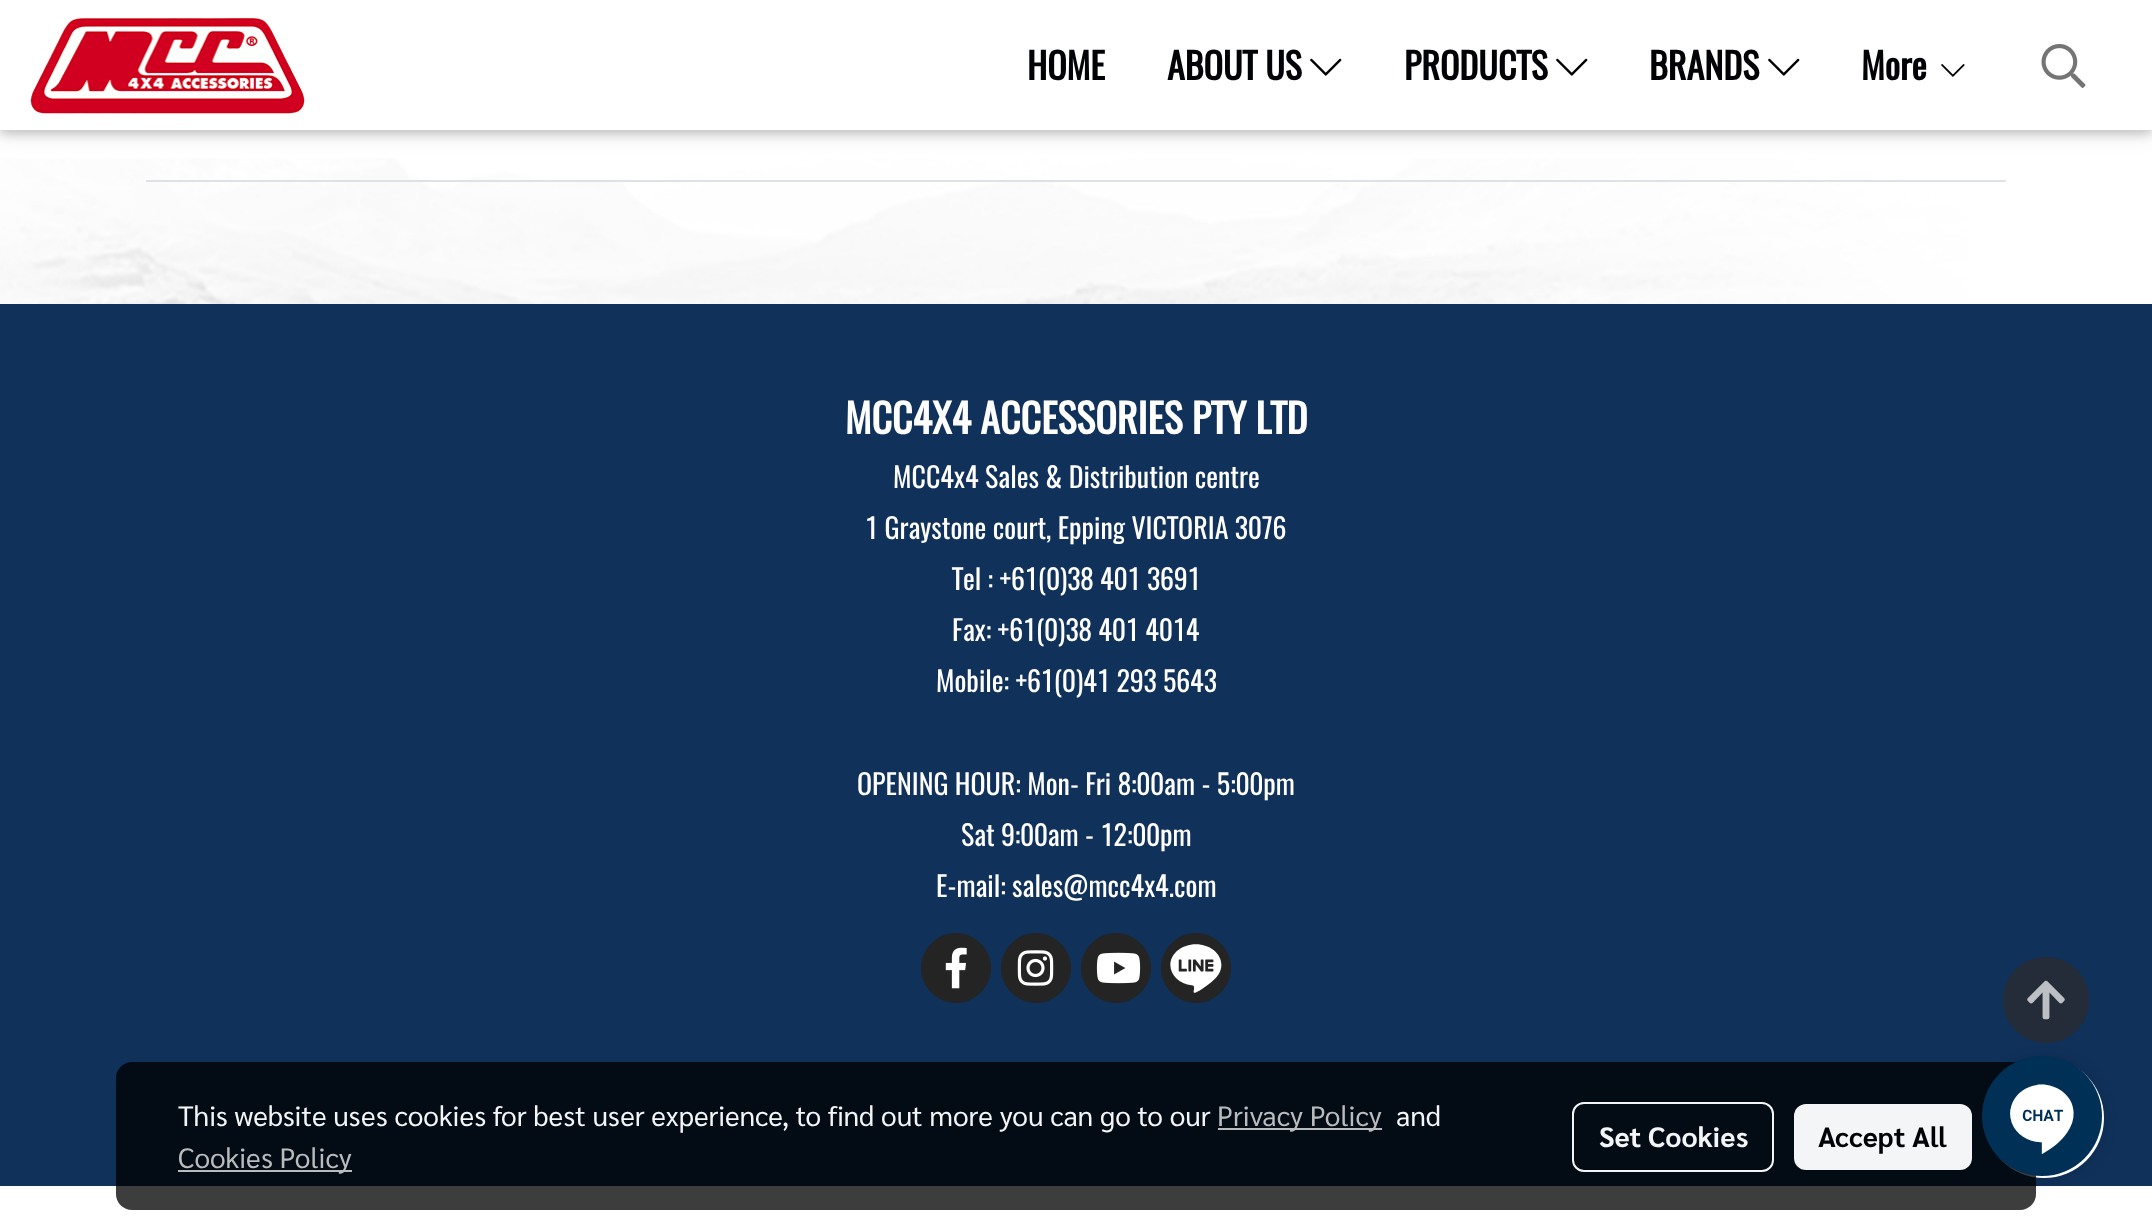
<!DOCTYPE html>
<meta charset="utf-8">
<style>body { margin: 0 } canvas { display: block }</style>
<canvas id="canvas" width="2152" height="1226"></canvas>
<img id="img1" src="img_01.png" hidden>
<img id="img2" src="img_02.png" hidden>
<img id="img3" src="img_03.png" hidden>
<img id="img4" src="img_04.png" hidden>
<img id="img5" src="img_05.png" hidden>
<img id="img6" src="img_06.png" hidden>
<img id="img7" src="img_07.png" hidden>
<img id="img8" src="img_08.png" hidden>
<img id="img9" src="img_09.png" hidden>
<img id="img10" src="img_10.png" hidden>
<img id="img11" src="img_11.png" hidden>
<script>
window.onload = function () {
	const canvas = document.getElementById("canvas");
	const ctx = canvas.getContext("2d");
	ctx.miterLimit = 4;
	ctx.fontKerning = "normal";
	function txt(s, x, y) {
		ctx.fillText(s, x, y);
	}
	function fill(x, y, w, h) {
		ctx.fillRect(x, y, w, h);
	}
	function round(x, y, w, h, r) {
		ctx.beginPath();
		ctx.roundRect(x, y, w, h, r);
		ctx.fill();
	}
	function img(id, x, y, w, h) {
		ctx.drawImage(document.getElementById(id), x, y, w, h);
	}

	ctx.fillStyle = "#FFFFFF";
	fill(0, 0, 2152, 1226);
	img("img1", 0, 158, 1968, 146);
	ctx.fillStyle = "rgba(0, 0, 0, 0.12)";
	ctx.filter = "blur(10px)";
	ctx.beginPath();
	ctx.rect(0, 4, 2152, 130);
	ctx.fill();
	ctx.filter = "none";
	ctx.fillStyle = "rgba(0, 0, 0, 0.16)";
	ctx.filter = "blur(5px)";
	ctx.beginPath();
	ctx.rect(0, 4, 2152, 130);
	ctx.fill();
	ctx.filter = "none";
	ctx.fillStyle = "#FFFFFF";
	fill(0, 0, 2152, 130);
	img("img2", 30, 18, 275, 96);
	img("img3", 1310, 58, 32, 18);
	img("img3", 1556, 58, 32, 18);
	img("img3", 1768, 58, 32, 18);
	img("img4", 1941, 64, 24, 13);
	img("img5", 2041, 44, 45, 44);
	ctx.fillStyle = "#DEE2E6";
	fill(146, 180, 1860, 2);
	ctx.fillStyle = "#10315A";
	fill(0, 304, 2152, 882);
	ctx.fillStyle = "#242424";
	ctx.beginPath();
	ctx.moveTo(956, 933);
	ctx.bezierCurveTo(937, 933, 921, 949, 921, 968);
	ctx.bezierCurveTo(921, 987, 937, 1003, 956, 1003);
	ctx.bezierCurveTo(975, 1003, 991, 987, 991, 968);
	ctx.bezierCurveTo(991, 949, 975, 933, 956, 933);
	ctx.closePath();
	ctx.fill();
	img("img6", 945, 947, 22, 42);
	ctx.beginPath();
	ctx.moveTo(1036, 933);
	ctx.bezierCurveTo(1017, 933, 1001, 949, 1001, 968);
	ctx.bezierCurveTo(1001, 987, 1017, 1003, 1036, 1003);
	ctx.bezierCurveTo(1055, 1003, 1071, 987, 1071, 968);
	ctx.bezierCurveTo(1071, 949, 1055, 933, 1036, 933);
	ctx.closePath();
	ctx.fill();
	img("img7", 1017, 950, 37, 36);
	ctx.beginPath();
	ctx.moveTo(1116, 933);
	ctx.bezierCurveTo(1097, 933, 1081, 949, 1081, 968);
	ctx.bezierCurveTo(1081, 987, 1097, 1003, 1116, 1003);
	ctx.bezierCurveTo(1135, 1003, 1151, 987, 1151, 968);
	ctx.bezierCurveTo(1151, 949, 1135, 933, 1116, 933);
	ctx.closePath();
	ctx.fill();
	img("img8", 1096, 952, 45, 32);
	ctx.beginPath();
	ctx.moveTo(1196, 933);
	ctx.bezierCurveTo(1177, 933, 1161, 949, 1161, 968);
	ctx.bezierCurveTo(1161, 987, 1177, 1003, 1196, 1003);
	ctx.bezierCurveTo(1215, 1003, 1231, 987, 1231, 968);
	ctx.bezierCurveTo(1231, 949, 1215, 933, 1196, 933);
	ctx.closePath();
	ctx.fill();
	img("img9", 1170, 944, 52, 49);
	ctx.fillStyle = "rgba(0, 0, 0, 0.14)";
	ctx.filter = "blur(7px)";
	ctx.beginPath();
	ctx.roundRect(1984, 1058, 120, 120, 60);
	ctx.fill();
	ctx.filter = "none";
	ctx.fillStyle = "#232C38";
	ctx.beginPath();
	ctx.moveTo(2046, 957);
	ctx.bezierCurveTo(2022, 957, 2003, 976, 2003, 1000);
	ctx.bezierCurveTo(2003, 1024, 2022, 1043, 2046, 1043);
	ctx.bezierCurveTo(2070, 1043, 2089, 1024, 2089, 1000);
	ctx.bezierCurveTo(2089, 976, 2070, 957, 2046, 957);
	ctx.closePath();
	ctx.fill();
	img("img10", 2027, 980, 38, 40);
	ctx.fillStyle = "#FFFFFF";
	ctx.beginPath();
	ctx.arc(2044, 1118, 60, 0, Math.PI * 2);
	ctx.fill();
	ctx.fillStyle = "rgba(0, 0, 0, 0.76)";
	round(116, 1062, 1920, 148, 16);
	ctx.fillStyle = "#B9BBBD";
	fill(1218, 1128, 164, 2);
	fill(178, 1170, 174, 2);
	ctx.beginPath();
	ctx.roundRect(1573, 1103, 200, 68, 11);
	ctx.strokeStyle = "#F3F5F7";
	ctx.lineWidth = 2;
	ctx.stroke();
	ctx.fillStyle = "#F3F5F7";
	round(1794, 1104, 178, 66, 12);
	img("img11", 1982, 1056, 120, 120);
	ctx.font = "bold 36px Oswald";
	ctx.fillStyle = "#010205";
	txt("HOME", 1027, 80);
	txt("ABOUT US", 1167, 80);
	txt("PRODUCTS", 1404, 80);
	txt("BRANDS", 1649, 80);
	txt("More", 1861, 80);
	ctx.font = "bold 40px Oswald";
	ctx.fillStyle = "#FFFFFF";
	txt("MCC4X4 ACCESSORIES PTY LTD", 845, 434);
	ctx.font = "28px Oswald";
	txt("MCC4x4 Sales & Distribution centre", 893, 488);
	txt("1 Graystone court, Epping VICTORIA 3076", 865, 539);
	txt("Tel : +61(0)38 401 3691", 952, 590);
	txt("Fax: +61(0)38 401 4014", 952, 641);
	txt("Mobile: +61(0)41 293 5643", 936, 692);
	txt("OPENING HOUR: Mon- Fri 8:00am - 5:00pm", 857, 795);
	txt("Sat 9:00am - 12:00pm", 961, 846);
	txt("E-mail: sales@mcc4x4.com", 936, 897);
	ctx.font = "28px Sarabun";
	ctx.fillStyle = "#F3F5F7";
	txt("This website uses cookies for best user experience, to find out more you can go to our", 178, 1126);
	ctx.fillStyle = "#B9BBBD";
	txt("Privacy Policy", 1217, 1126);
	ctx.fillStyle = "#F3F5F7";
	txt("and", 1396, 1126);
	ctx.fillStyle = "#B9BBBD";
	txt("Cookies Policy", 178, 1168);
	ctx.font = "bold 28px Sarabun";
	ctx.fillStyle = "#F3F5F7";
	txt("Set Cookies", 1599, 1147);
	ctx.fillStyle = "#010205";
	txt("Accept All", 1818, 1147);
};
</script>
